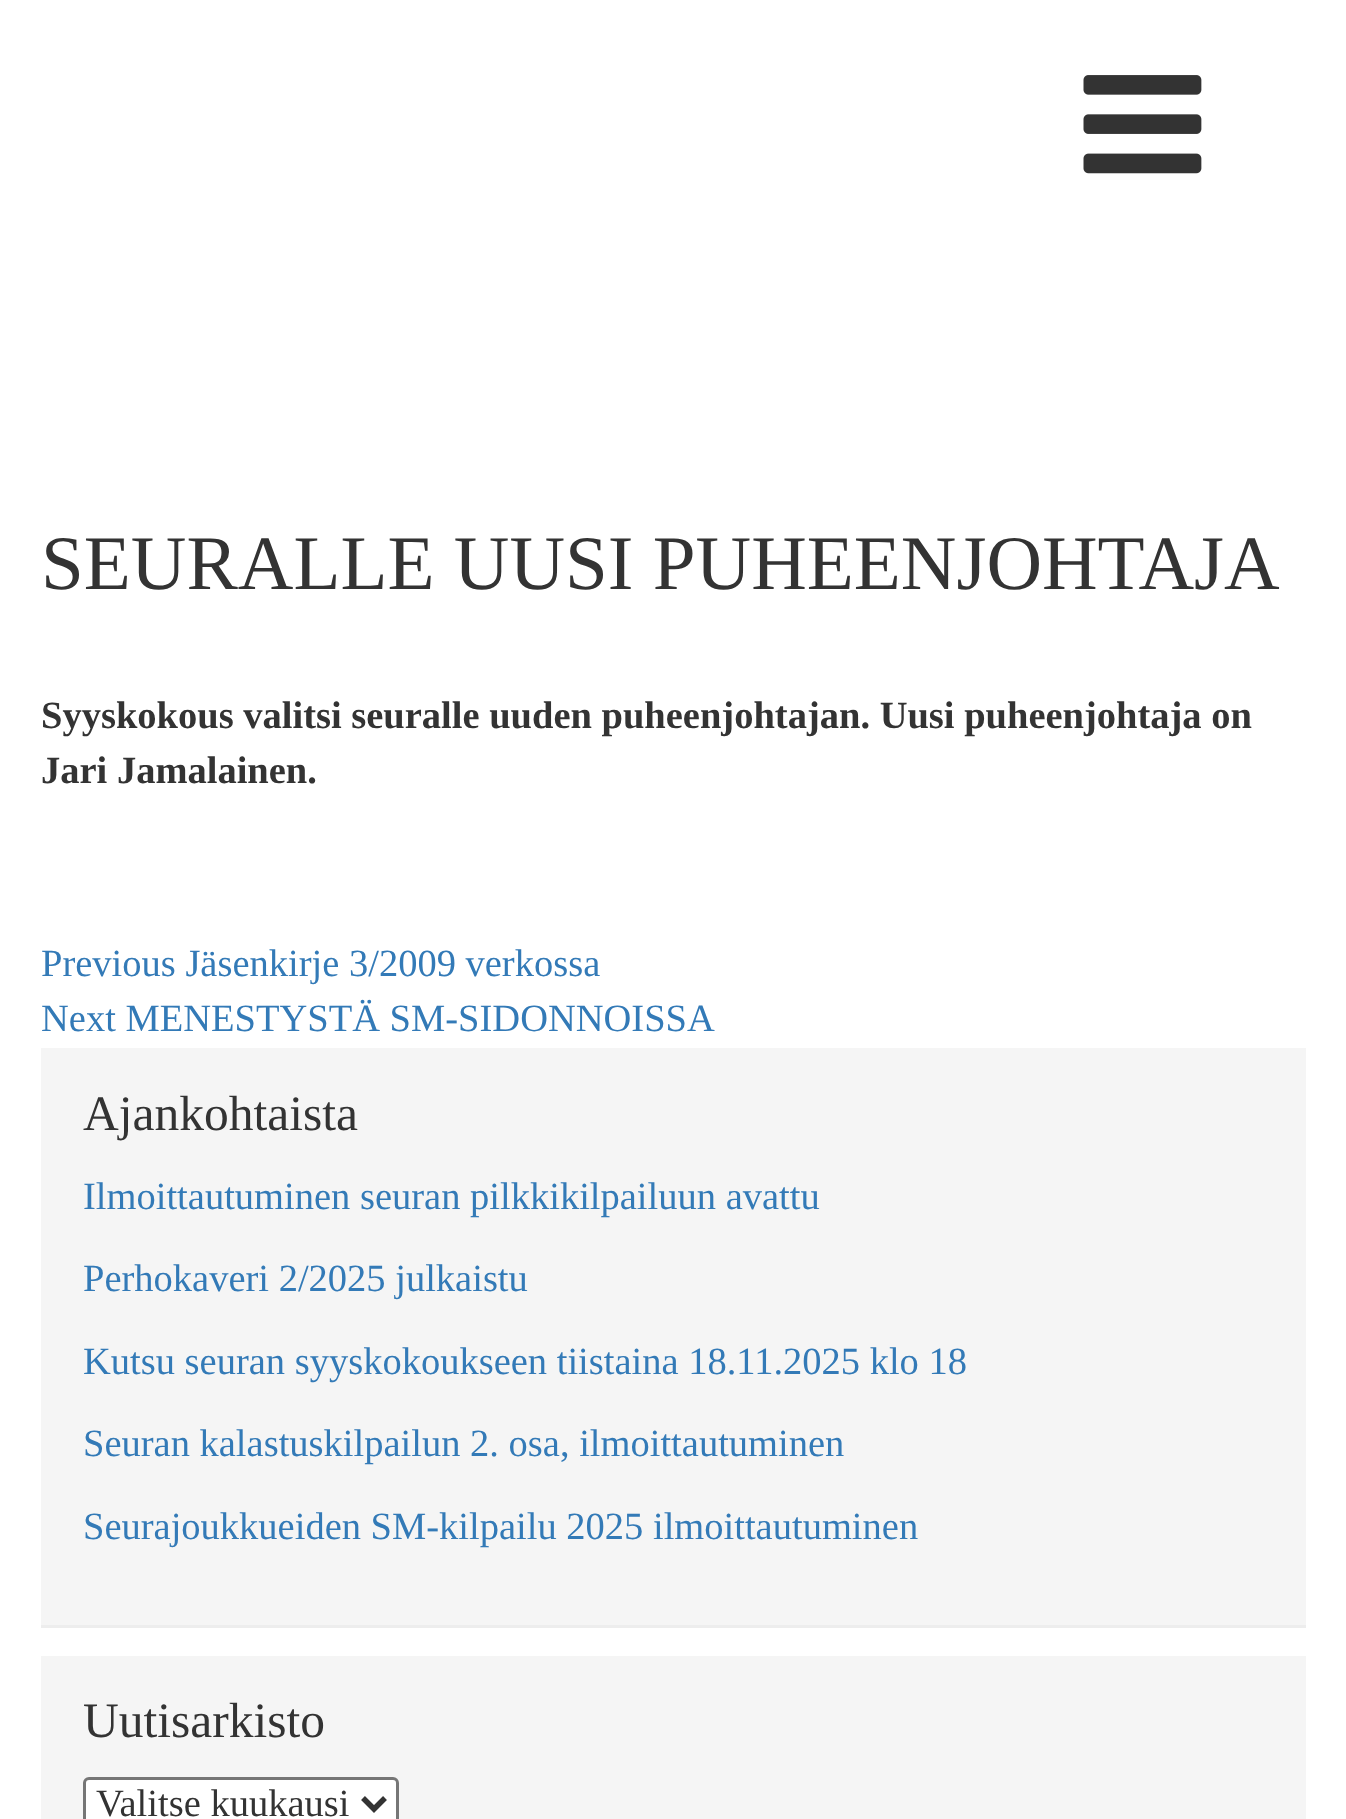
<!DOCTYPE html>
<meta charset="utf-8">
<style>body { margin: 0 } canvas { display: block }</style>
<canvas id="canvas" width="1346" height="1819"></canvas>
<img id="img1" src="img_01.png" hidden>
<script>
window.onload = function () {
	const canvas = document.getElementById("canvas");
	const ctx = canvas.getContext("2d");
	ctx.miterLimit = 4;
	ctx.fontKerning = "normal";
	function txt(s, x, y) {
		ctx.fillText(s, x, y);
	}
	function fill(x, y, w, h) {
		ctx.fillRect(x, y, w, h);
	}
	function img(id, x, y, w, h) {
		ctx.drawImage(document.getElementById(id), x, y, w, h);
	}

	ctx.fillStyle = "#FFFFFF";
	fill(0, 0, 1346, 1819);
	img("img1", 1083, 75, 119, 99);
	ctx.fillStyle = "#F5F5F5";
	fill(41, 1048, 1265, 577);
	ctx.fillStyle = "#EDEDED";
	fill(41, 1625, 1265, 3);
	ctx.fillStyle = "#F5F5F5";
	fill(41, 1656, 1265, 163);
	ctx.fillStyle = "#FFFFFF";
	ctx.beginPath();
	ctx.roundRect(84.5, 1778.5, 313, 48, 4.5);
	ctx.fill();
	ctx.strokeStyle = "#767676";
	ctx.lineWidth = 3;
	ctx.stroke();
	ctx.beginPath();
	ctx.moveTo(363, 1798);
	ctx.lineTo(374, 1809);
	ctx.lineTo(385, 1798);
	ctx.strokeStyle = "#333333";
	ctx.lineWidth = 5.5;
	ctx.stroke();
	ctx.font = "77px Liberation Serif";
	ctx.fillStyle = "#333333";
	txt("SEURALLE UUSI PUHEENJOHTAJA", 41, 589);
	ctx.font = "bold 38.5px Liberation Serif";
	txt("Syyskokous valitsi seuralle uuden puheenjohtajan. Uusi puheenjohtaja on", 41, 728);
	txt("Jari Jamalainen.", 41, 783);
	ctx.font = "38.5px Liberation Serif";
	ctx.fillStyle = "#337AB7";
	txt("Previous Jäsenkirje 3/2009 verkossa", 41, 976);
	txt("Next MENESTYSTÄ SM-SIDONNOISSA", 41, 1031);
	ctx.font = "49.5px Liberation Serif";
	ctx.fillStyle = "#333333";
	txt("Ajankohtaista", 83, 1130);
	ctx.font = "38.5px Liberation Serif";
	ctx.fillStyle = "#337AB7";
	txt("Ilmoittautuminen seuran pilkkikilpailuun avattu", 83, 1209);
	txt("Perhokaveri 2/2025 julkaistu", 83, 1291);
	txt("Kutsu seuran syyskokoukseen tiistaina 18.11.2025 klo 18", 83, 1374);
	txt("Seuran kalastuskilpailun 2. osa, ilmoittautuminen", 83, 1456);
	txt("Seurajoukkueiden SM-kilpailu 2025 ilmoittautuminen", 83, 1539);
	ctx.font = "49.5px Liberation Serif";
	ctx.fillStyle = "#333333";
	txt("Uutisarkisto", 83, 1737);
	ctx.font = "38.5px Liberation Serif";
	txt("Valitse kuukausi", 96, 1816);
};
</script>
